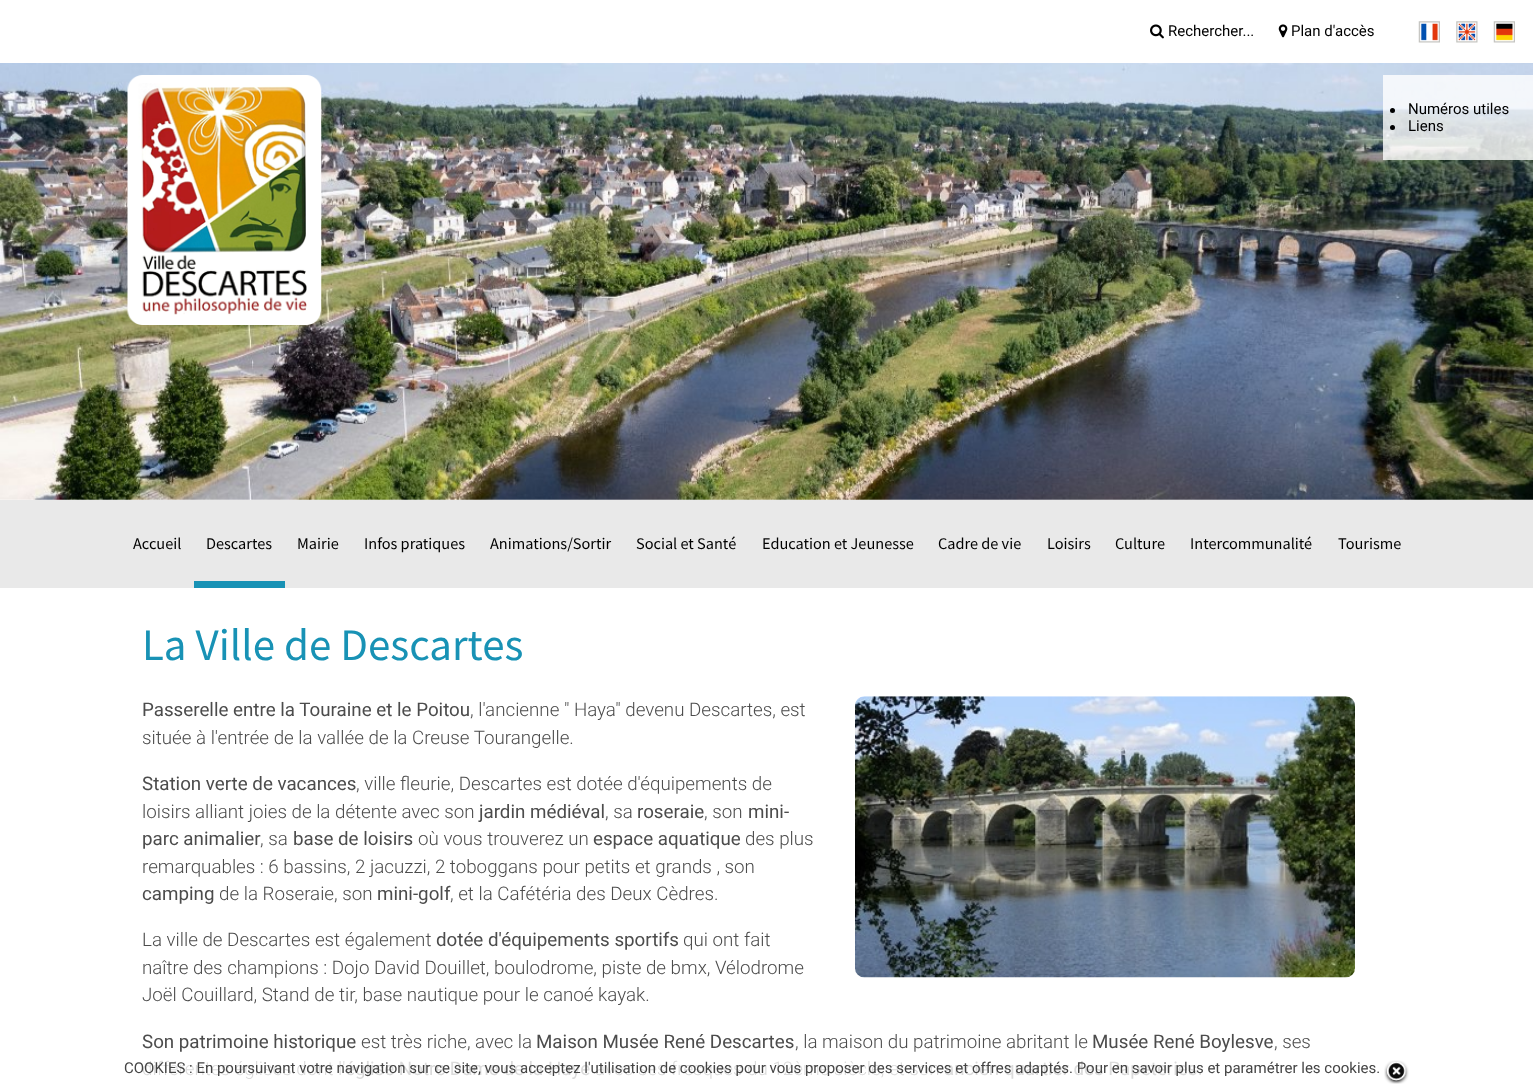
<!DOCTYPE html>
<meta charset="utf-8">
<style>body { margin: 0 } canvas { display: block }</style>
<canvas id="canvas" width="1533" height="1085"></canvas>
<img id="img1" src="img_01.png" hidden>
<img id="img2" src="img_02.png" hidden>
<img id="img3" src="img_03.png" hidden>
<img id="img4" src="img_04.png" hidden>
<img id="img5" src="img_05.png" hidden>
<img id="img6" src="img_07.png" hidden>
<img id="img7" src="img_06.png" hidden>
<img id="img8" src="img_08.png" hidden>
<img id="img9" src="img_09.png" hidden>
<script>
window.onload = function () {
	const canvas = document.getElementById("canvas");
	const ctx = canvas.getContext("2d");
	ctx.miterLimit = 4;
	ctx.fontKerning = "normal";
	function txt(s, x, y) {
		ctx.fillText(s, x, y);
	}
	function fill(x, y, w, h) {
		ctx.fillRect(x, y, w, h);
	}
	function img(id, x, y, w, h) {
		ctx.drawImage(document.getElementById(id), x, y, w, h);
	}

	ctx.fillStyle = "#FFFFFF";
	fill(0, 0, 1533, 1085);
	img("img1", 1150, 24, 14, 15);
	img("img2", 1278, 24, 10, 14);
	img("img3", 1418, 21, 22, 22);
	img("img4", 1456, 21, 22, 22);
	img("img5", 1493, 21, 22, 22);
	img("img6", 0, 63, 1533, 437);
	img("img7", 127, 75, 195, 250);
	ctx.fillStyle = "rgba(255, 255, 255, 0.8)";
	fill(1383, 75, 150, 85);
	ctx.fillStyle = "#000000";
	ctx.beginPath();
	ctx.arc(1392.5, 110.5, 2.5, 0, Math.PI * 2);
	ctx.fill();
	ctx.beginPath();
	ctx.arc(1392.5, 127.5, 2.5, 0, Math.PI * 2);
	ctx.fill();
	ctx.fillStyle = "#E9E9E9";
	fill(0, 500, 1533, 88);
	ctx.fillStyle = "#1892B5";
	fill(194, 581, 91, 7);
	img("img8", 855, 696, 500, 282);
	img("img9", 1384, 1060, 25, 24);
	ctx.font = "15px Roboto";
	ctx.fillStyle = "#000000";
	txt("Rechercher...", 1168, 36);
	txt("Plan d'accès", 1291, 36);
	txt("Numéros utiles", 1408, 114);
	txt("Liens", 1408, 131);
	ctx.font = "16.25px Source Sans Pro";
	txt("Accueil", 133, 549);
	txt("Descartes", 206, 549);
	txt("Mairie", 297, 549);
	txt("Infos pratiques", 364, 549);
	txt("Animations/Sortir", 490, 549);
	txt("Social et Santé", 636, 549);
	txt("Education et Jeunesse", 762, 549);
	txt("Cadre de vie", 938, 549);
	txt("Loisirs", 1047, 549);
	txt("Culture", 1115, 549);
	txt("Intercommunalité", 1190, 549);
	txt("Tourisme", 1338, 549);
	ctx.font = "45px Source Sans Pro";
	ctx.fillStyle = "#1892B5";
	txt("La Ville de Descartes", 142, 660);
	ctx.font = "18.75px Roboto";
	ctx.fillStyle = "#4C4C4C";
	txt("Passerelle entre la Touraine et le Poitou", 142, 716);
	ctx.font = "300 18.75px Roboto";
	txt(", l'ancienne \" Haya\" devenu Descartes, est", 470, 716);
	txt("située à l'entrée de la vallée de la Creuse Tourangelle.", 142, 744);
	ctx.font = "18.75px Roboto";
	txt("Station verte de vacances", 142, 790);
	ctx.font = "300 18.75px Roboto";
	txt(", ville fleurie, Descartes est dotée d'équipements de", 356, 790);
	txt("loisirs alliant joies de la détente avec son", 142, 818);
	ctx.font = "18.75px Roboto";
	txt("jardin médiéval", 479, 818);
	ctx.font = "300 18.75px Roboto";
	txt(", sa", 605, 818);
	ctx.font = "18.75px Roboto";
	txt("roseraie", 637, 818);
	ctx.font = "300 18.75px Roboto";
	txt(", son", 704, 818);
	ctx.font = "18.75px Roboto";
	txt("mini-", 748, 818);
	txt("parc animalier", 142, 845);
	ctx.font = "300 18.75px Roboto";
	txt(", sa", 260, 845);
	ctx.font = "18.75px Roboto";
	txt("base de loisirs", 293, 845);
	ctx.font = "300 18.75px Roboto";
	txt("où vous trouverez un", 418, 845);
	ctx.font = "18.75px Roboto";
	txt("espace aquatique", 593, 845);
	ctx.font = "300 18.75px Roboto";
	txt("des plus", 745, 845);
	txt("remarquables : 6 bassins, 2 jacuzzi, 2 toboggans pour petits et grands , son", 142, 873);
	ctx.font = "18.75px Roboto";
	txt("camping", 142, 900);
	ctx.font = "300 18.75px Roboto";
	txt("de la Roseraie, son", 219, 900);
	ctx.font = "18.75px Roboto";
	txt("mini-golf", 377, 900);
	ctx.font = "300 18.75px Roboto";
	txt(", et la Cafétéria des Deux Cèdres.", 450, 900);
	txt("La ville de Descartes est également", 142, 946);
	ctx.font = "18.75px Roboto";
	txt("dotée d'équipements sportifs", 436, 946);
	ctx.font = "300 18.75px Roboto";
	txt("qui ont fait", 683, 946);
	txt("naître des champions : Dojo David Douillet, boulodrome, piste de bmx, Vélodrome", 142, 974);
	txt("Joël Couillard, Stand de tir, base nautique pour le canoé kayak.", 142, 1001);
	ctx.font = "18.75px Roboto";
	txt("Son patrimoine historique", 142, 1048);
	ctx.font = "300 18.75px Roboto";
	txt("est très riche, avec la", 361, 1048);
	ctx.font = "18.75px Roboto";
	txt("Maison Musée René Descartes", 536, 1048);
	ctx.font = "300 18.75px Roboto";
	txt(", la maison du patrimoine abritant le", 795, 1048);
	ctx.font = "18.75px Roboto";
	txt("Musée René Boylesve", 1092, 1048);
	ctx.font = "300 18.75px Roboto";
	txt(", ses", 1274, 1048);
	ctx.fillStyle = "#DBDBDB";
	txt("différentes églises dont l'", 142, 1075);
	ctx.font = "18.75px Roboto";
	txt("église Notre Dame de la Haye", 345, 1075);
	ctx.font = "300 18.75px Roboto";
	txt("avec ses fresques du 12ème siècle, et son", 595, 1075);
	ctx.font = "18.75px Roboto";
	txt("ancien quartier des Papeteries", 944, 1075);
	ctx.font = "300 18.75px Roboto";
	txt(".", 1198, 1075);
	ctx.font = "15px Roboto";
	ctx.fillStyle = "#444444";
	txt("COOKIES : En poursuivant votre navigation sur ce site, vous acceptez l'utilisation de cookies pour vous proposer des services et offres adaptés. Pour en savoir plus et paramétrer les cookies.", 124, 1073);
};
</script>
